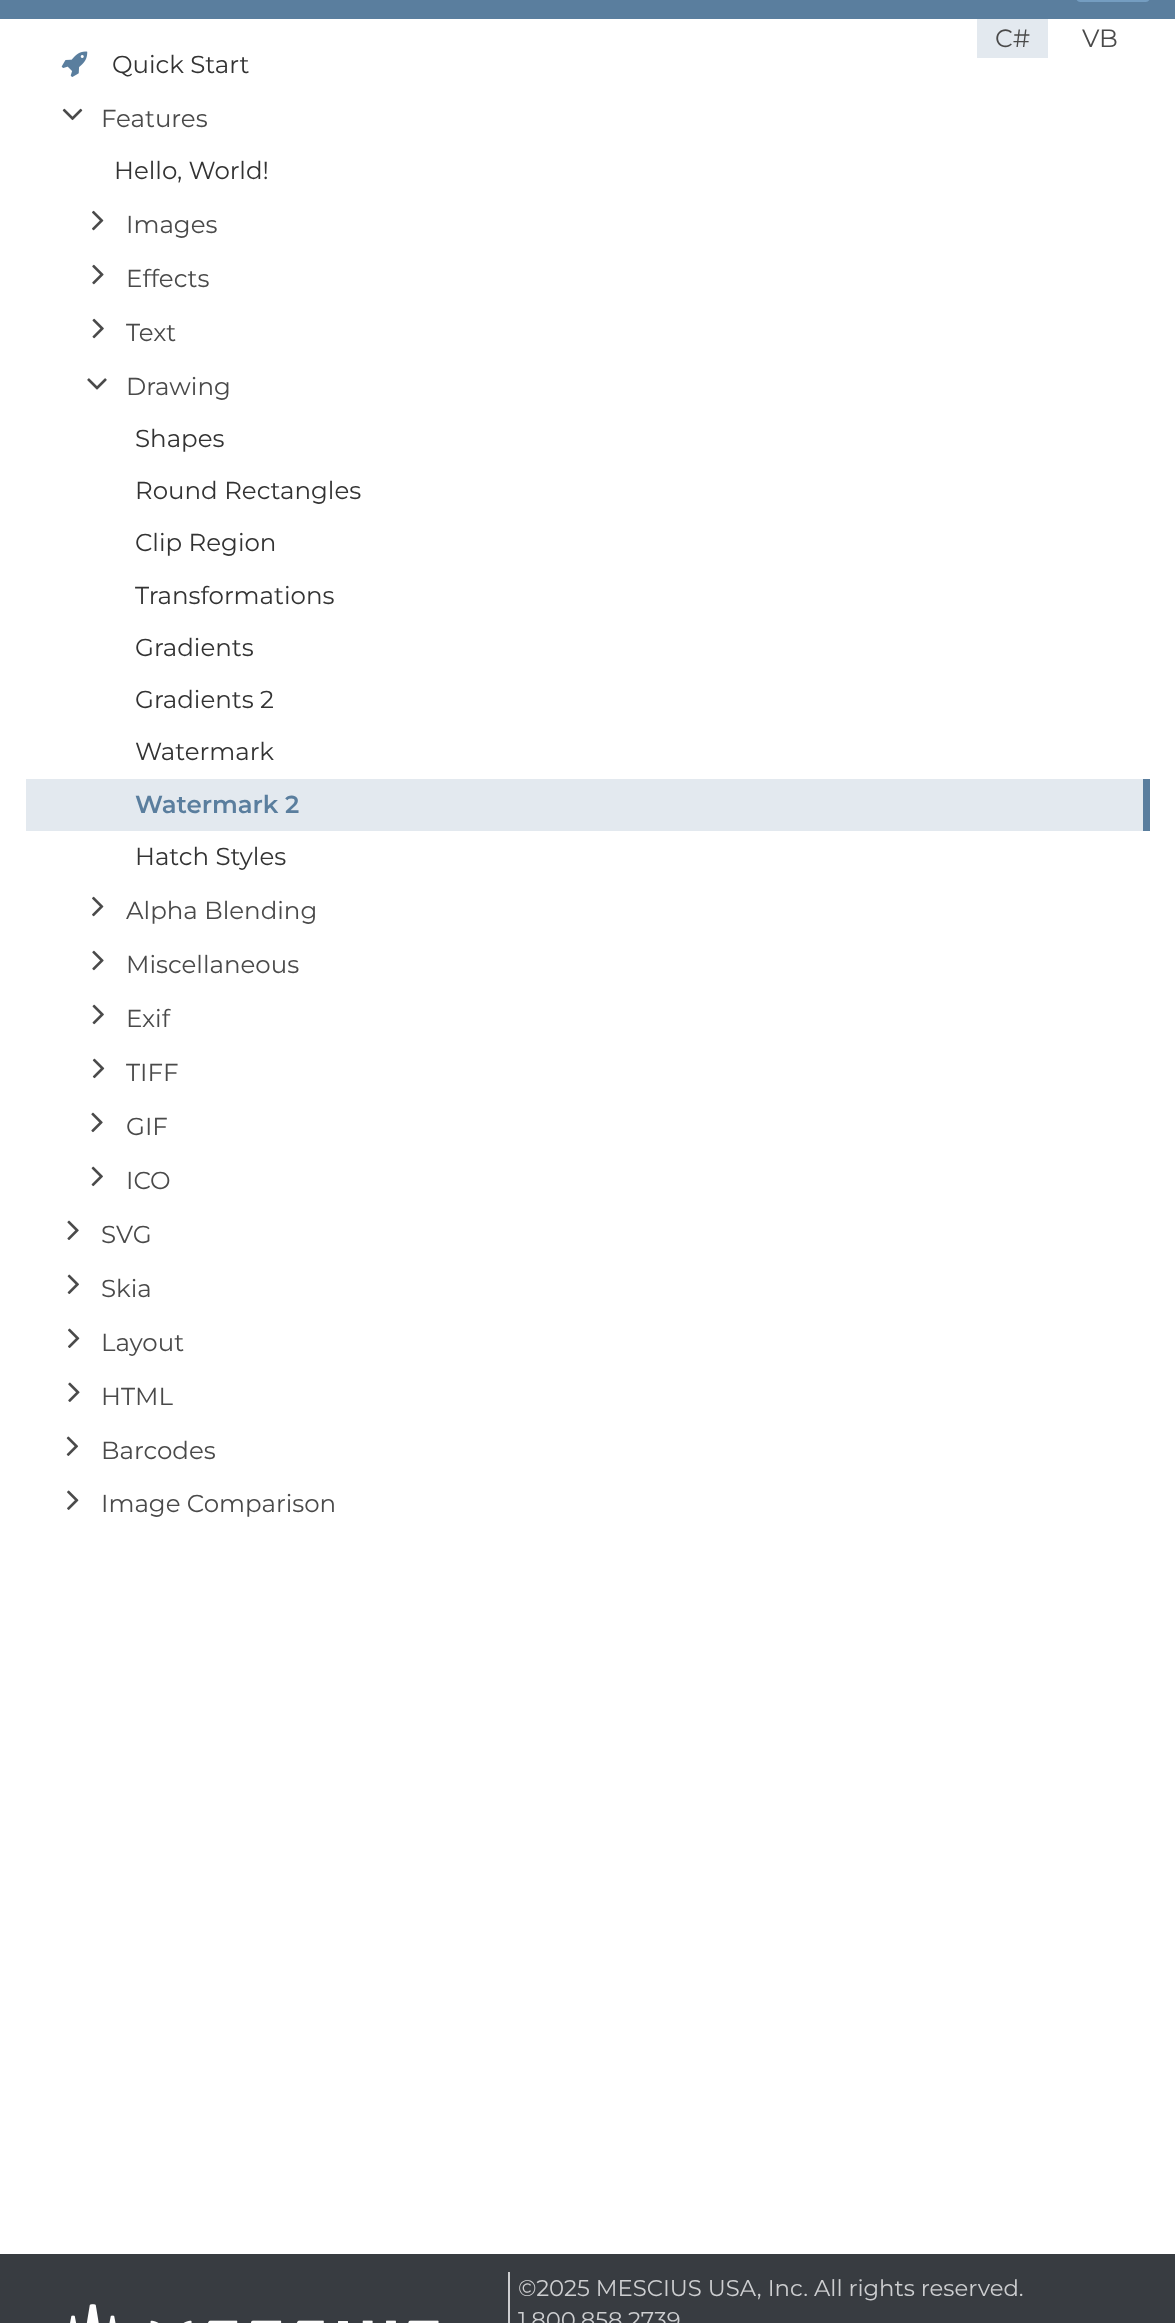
<!DOCTYPE html>
<meta charset="utf-8">
<style>body { margin: 0 } canvas { display: block }</style>
<canvas id="canvas" width="1175" height="2323"></canvas>
<img id="img1" src="img_01.png" hidden>
<img id="img2" src="img_02.png" hidden>
<img id="img3" src="img_03.png" hidden>
<img id="img4" src="img_04.png" hidden>
<img id="img5" src="img_05.png" hidden>
<img id="img6" src="img_06.png" hidden>
<img id="img7" src="img_07.png" hidden>
<img id="img8" src="img_08.png" hidden>
<img id="img9" src="img_09.png" hidden>
<img id="img10" src="img_10.png" hidden>
<img id="img11" src="img_11.png" hidden>
<img id="img12" src="img_12.png" hidden>
<img id="img13" src="img_13.png" hidden>
<img id="img14" src="img_14.png" hidden>
<img id="img15" src="img_15.png" hidden>
<img id="img16" src="img_16.png" hidden>
<img id="img17" src="img_17.png" hidden>
<img id="img18" src="img_18.png" hidden>
<img id="img19" src="img_19.png" hidden>
<script>
window.onload = function () {
	const canvas = document.getElementById("canvas");
	const ctx = canvas.getContext("2d");
	ctx.miterLimit = 4;
	ctx.fontKerning = "normal";
	function txt(s, x, y) {
		ctx.fillText(s, x, y);
	}
	function fill(x, y, w, h) {
		ctx.fillRect(x, y, w, h);
	}
	function round(x, y, w, h, r) {
		ctx.beginPath();
		ctx.roundRect(x, y, w, h, r);
		ctx.fill();
	}
	function img(id, x, y, w, h) {
		ctx.drawImage(document.getElementById(id), x, y, w, h);
	}

	ctx.fillStyle = "#FFFFFF";
	fill(0, 0, 1175, 2323);
	ctx.fillStyle = "#5A7E9E";
	fill(0, 0, 1175, 19);
	ctx.fillStyle = "#749DC1";
	round(1076, -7, 74, 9, 7);
	ctx.fillStyle = "#E3E9EF";
	fill(977, 19, 71, 39);
	img("img1", 61, 51, 27, 26);
	img("img2", 62, 108, 21, 13);
	img("img3", 92, 210, 12, 21);
	img("img4", 92, 264, 12, 21);
	img("img5", 92, 318, 12, 21);
	img("img6", 87, 378, 20, 12);
	fill(26, 779, 1117, 52);
	ctx.fillStyle = "#5A7E9E";
	fill(1143, 779, 7, 52);
	img("img7", 92, 896, 12, 21);
	img("img8", 92, 950, 12, 21);
	img("img9", 92, 1004, 12, 21);
	img("img10", 92, 1058, 13, 21);
	img("img11", 91, 1112, 12, 21);
	img("img12", 91, 1166, 12, 21);
	img("img13", 67, 1220, 12, 20);
	img("img14", 67, 1274, 12, 20);
	img("img15", 68, 1328, 12, 20);
	img("img16", 68, 1382, 12, 20);
	img("img17", 66, 1436, 13, 20);
	img("img18", 67, 1490, 12, 20);
	ctx.fillStyle = "#383C41";
	fill(0, 2254, 1175, 69);
	ctx.fillStyle = "#CDCED0";
	fill(508, 2272, 2, 51);
	img("img19", 70, 2304, 369, 19);
	ctx.font = "25px Montserrat";
	ctx.fillStyle = "#4A4A4A";
	txt("C#", 995, 47);
	txt("VB", 1082, 47);
	ctx.font = "24.5px Montserrat";
	ctx.fillStyle = "#333333";
	txt("Quick Start", 112, 73);
	ctx.fillStyle = "#4A4A4A";
	txt("Features", 101, 127);
	ctx.fillStyle = "#333333";
	txt("Hello, World!", 114, 179);
	ctx.fillStyle = "#4A4A4A";
	txt("Images", 126, 233);
	txt("Effects", 126, 287);
	txt("Text", 126, 341);
	txt("Drawing", 126, 395);
	ctx.fillStyle = "#333333";
	txt("Shapes", 135, 447);
	txt("Round Rectangles", 135, 499);
	txt("Clip Region", 135, 551);
	txt("Transformations", 135, 604);
	txt("Gradients", 135, 656);
	txt("Gradients 2", 135, 708);
	txt("Watermark", 135, 760);
	ctx.font = "600 24.5px Montserrat";
	ctx.fillStyle = "#5A7E9E";
	txt("Watermark 2", 135, 813);
	ctx.font = "24.5px Montserrat";
	ctx.fillStyle = "#333333";
	txt("Hatch Styles", 135, 865);
	ctx.fillStyle = "#4A4A4A";
	txt("Alpha Blending", 126, 919);
	txt("Miscellaneous", 126, 973);
	txt("Exif", 126, 1027);
	txt("TIFF", 126, 1081);
	txt("GIF", 126, 1135);
	txt("ICO", 126, 1189);
	txt("SVG", 101, 1243);
	txt("Skia", 101, 1297);
	txt("Layout", 101, 1351);
	txt("HTML", 101, 1405);
	txt("Barcodes", 101, 1459);
	txt("Image Comparison", 101, 1512);
	ctx.font = "22.75px Montserrat";
	ctx.fillStyle = "#CDCED0";
	txt("©2025 MESCIUS USA, Inc. All rights reserved.", 518, 2296);
	txt("1.800.858.2739", 518, 2328);
};
</script>
